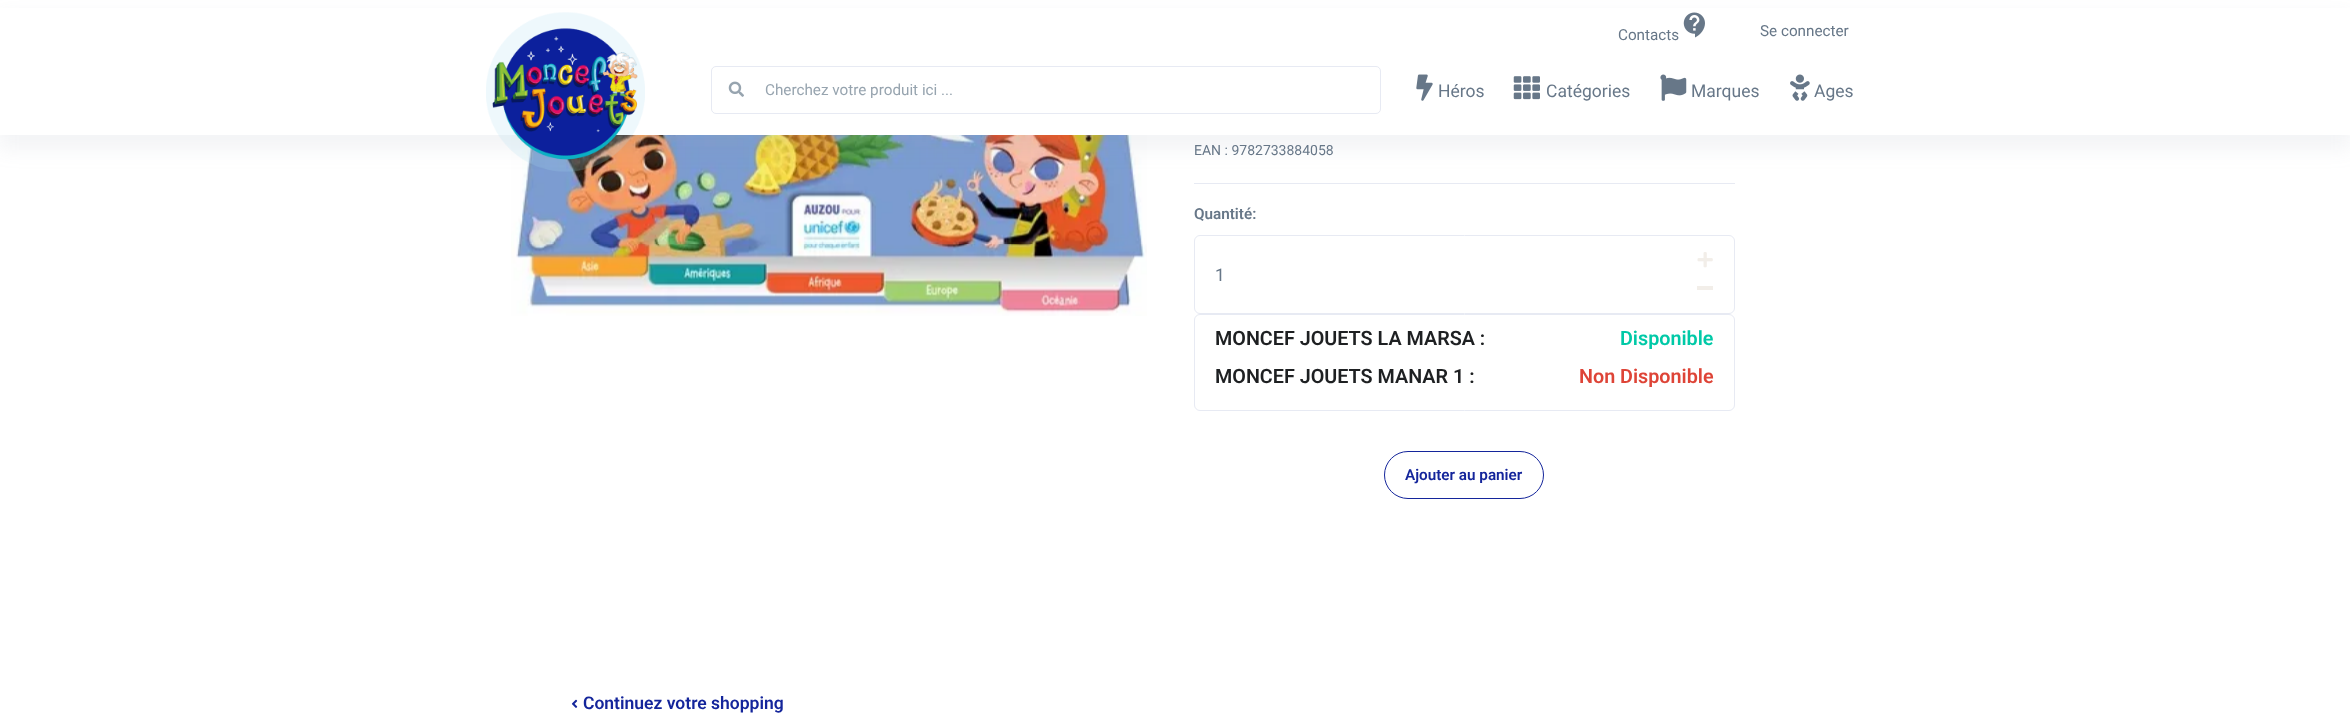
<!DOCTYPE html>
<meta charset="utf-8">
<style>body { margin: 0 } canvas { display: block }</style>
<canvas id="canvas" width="2350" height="719"></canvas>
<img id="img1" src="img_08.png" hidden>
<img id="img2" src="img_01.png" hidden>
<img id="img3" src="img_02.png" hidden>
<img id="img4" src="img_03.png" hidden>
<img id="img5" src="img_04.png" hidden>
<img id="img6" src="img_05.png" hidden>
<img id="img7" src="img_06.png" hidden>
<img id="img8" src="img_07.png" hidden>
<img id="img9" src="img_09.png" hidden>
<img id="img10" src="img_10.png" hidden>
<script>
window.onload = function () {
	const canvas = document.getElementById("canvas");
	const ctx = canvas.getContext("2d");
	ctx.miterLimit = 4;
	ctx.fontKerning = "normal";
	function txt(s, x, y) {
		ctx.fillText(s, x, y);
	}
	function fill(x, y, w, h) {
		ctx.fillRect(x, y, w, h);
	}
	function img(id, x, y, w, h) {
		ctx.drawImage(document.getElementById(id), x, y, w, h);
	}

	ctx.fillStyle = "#FFFFFF";
	fill(0, 0, 2350, 719);
	img("img1", 511, 135, 636, 181);
	ctx.fillStyle = "rgba(140, 152, 164, 0.1)";
	ctx.filter = "blur(9.5px)";
	ctx.beginPath();
	ctx.rect(0, 15, 2350, 135);
	ctx.fill();
	ctx.filter = "none";
	ctx.fillStyle = "#FFFFFF";
	fill(0, 8, 2350, 127);
	img("img2", 486, 12, 159, 160);
	img("img3", 1683, 12, 22, 26);
	ctx.beginPath();
	ctx.roundRect(711.5, 66.5, 669, 47, 4.5);
	ctx.strokeStyle = "#E7EAF3";
	ctx.stroke();
	img("img4", 728, 81, 16, 16);
	img("img5", 1416, 74, 17, 27);
	img("img6", 1513, 76, 27, 24);
	img("img7", 1660, 74, 27, 27);
	img("img8", 1790, 74, 20, 27);
	ctx.fillStyle = "#E7EAF3";
	fill(1194, 183, 541, 1);
	ctx.beginPath();
	ctx.roundRect(1194.5, 235.5, 540, 78, 5.5);
	ctx.stroke();
	img("img9", 1697, 252, 16, 16);
	ctx.fillStyle = "#F2EEE9";
	fill(1697, 286, 16, 4);
	ctx.beginPath();
	ctx.roundRect(1194.5, 314.5, 540, 96, 5.5);
	ctx.stroke();
	ctx.beginPath();
	ctx.roundRect(1384.5, 451.5, 159, 47, 23.5);
	ctx.strokeStyle = "#14259B";
	ctx.stroke();
	img("img10", 571, 699, 7, 9);
	ctx.font = "15.25px Roboto";
	ctx.fillStyle = "#677788";
	txt("Contacts", 1618, 40);
	txt("Se connecter", 1760, 36);
	ctx.fillStyle = "#97A4AF";
	txt("Cherchez votre produit ici ...", 765, 95);
	ctx.font = "17.5px Roboto";
	ctx.fillStyle = "#677788";
	txt("Héros", 1438, 97);
	txt("Catégories", 1546, 97);
	txt("Marques", 1691, 97);
	txt("Ages", 1814, 97);
	ctx.font = "14px Roboto";
	txt("EAN : 9782733884058", 1194, 155);
	ctx.font = "600 15.25px Roboto";
	txt("Quantité:", 1194, 219);
	ctx.font = "17.5px Roboto";
	txt("1", 1215, 281);
	ctx.font = "600 19.75px Roboto";
	ctx.fillStyle = "#1E2022";
	txt("MONCEF JOUETS LA MARSA :", 1215, 345);
	txt("MONCEF JOUETS MANAR 1 :", 1215, 383);
	ctx.fillStyle = "#00C9A7";
	txt("Disponible", 1620, 345);
	ctx.fillStyle = "#DE4437";
	txt("Non Disponible", 1579, 383);
	ctx.font = "600 15.25px Roboto";
	ctx.fillStyle = "#14259B";
	txt("Ajouter au panier", 1405, 480);
	ctx.font = "600 17.5px Roboto";
	txt("Continuez votre shopping", 583, 709);
};
</script>
